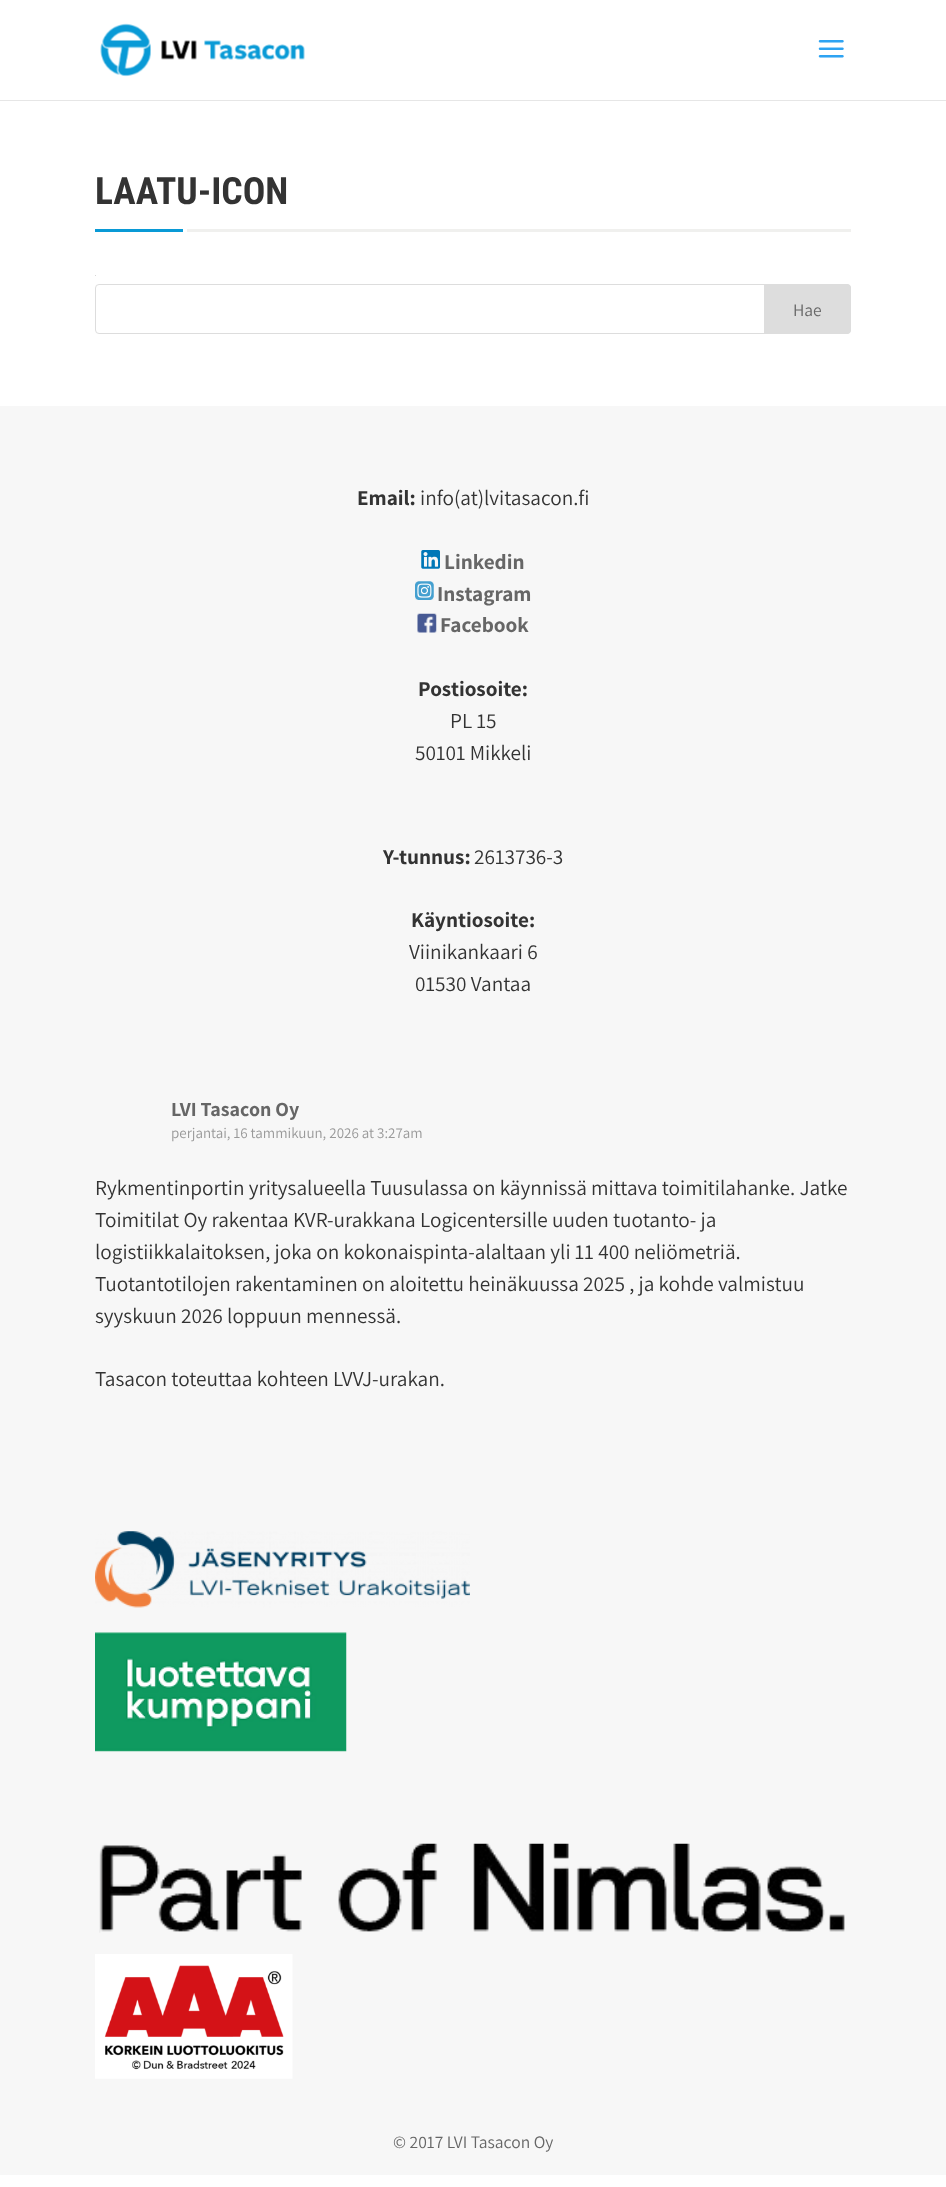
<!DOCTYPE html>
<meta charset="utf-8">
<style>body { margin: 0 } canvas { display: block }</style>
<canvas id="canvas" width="946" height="2187"></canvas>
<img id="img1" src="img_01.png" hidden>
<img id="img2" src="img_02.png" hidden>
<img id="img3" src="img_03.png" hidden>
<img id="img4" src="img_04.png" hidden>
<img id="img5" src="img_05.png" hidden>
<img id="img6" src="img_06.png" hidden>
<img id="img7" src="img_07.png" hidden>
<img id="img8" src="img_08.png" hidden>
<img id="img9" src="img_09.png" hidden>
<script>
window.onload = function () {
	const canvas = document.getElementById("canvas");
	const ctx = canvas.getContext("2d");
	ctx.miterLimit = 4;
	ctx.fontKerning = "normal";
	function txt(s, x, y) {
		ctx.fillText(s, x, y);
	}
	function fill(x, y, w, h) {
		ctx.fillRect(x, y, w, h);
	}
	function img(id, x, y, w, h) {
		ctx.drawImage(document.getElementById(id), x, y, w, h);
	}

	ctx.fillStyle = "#FFFFFF";
	fill(0, 0, 946, 2187);
	ctx.fillStyle = "#E6E6E6";
	fill(0, 100, 946, 1);
	img("img1", 100, 23, 205, 54);
	img("img2", 818, 40, 26, 18);
	ctx.fillStyle = "#F0F0EE";
	fill(187, 229, 664, 3);
	ctx.fillStyle = "#099AD6";
	fill(95, 229, 91, 3);
	ctx.fillStyle = "#FFFFFF";
	fill(183, 229, 4, 3);
	ctx.fillStyle = "#D6D6D6";
	fill(95, 275, 1, 1);
	ctx.beginPath();
	ctx.roundRect(95.5, 284.5, 755, 49, 3.5);
	ctx.strokeStyle = "#DDDDDD";
	ctx.stroke();
	ctx.fillStyle = "#DDDDDD";
	ctx.beginPath();
	ctx.roundRect(764.5, 284.5, 86, 49, [0, 3.5, 3.5, 0]);
	ctx.fill();
	ctx.stroke();
	ctx.fillStyle = "#F7F7F7";
	fill(0, 406, 946, 1769);
	img("img3", 421, 550, 19, 19);
	img("img4", 415, 581, 19, 19);
	img("img5", 417, 613, 20, 20);
	img("img6", 95, 1531, 375, 77);
	img("img7", 95, 1632, 252, 120);
	img("img8", 99, 1843, 746, 90);
	img("img9", 95, 1954, 198, 125);
	ctx.font = "bold 37.5px Roboto Condensed";
	ctx.fillStyle = "#333333";
	txt("LAATU-ICON", 95, 204);
	ctx.font = "17.5px Assistant";
	ctx.fillStyle = "#666666";
	txt("Hae", 793, 316);
	ctx.font = "bold 21.25px Assistant";
	ctx.fillStyle = "#333333";
	txt("Email:", 357, 505);
	ctx.font = "21.25px Assistant";
	txt("info(at)lvitasacon.fi", 420, 505);
	ctx.font = "bold 21.25px Assistant";
	ctx.fillStyle = "#666666";
	txt("Linkedin", 444, 569);
	txt("Instagram", 437, 601);
	txt("Facebook", 440, 632);
	ctx.fillStyle = "#333333";
	txt("Postiosoite:", 418, 696);
	ctx.font = "21.25px Assistant";
	txt("PL 15", 450, 728);
	txt("50101 Mikkeli", 415, 760);
	ctx.font = "bold 21.25px Assistant";
	txt("Y-tunnus:", 383, 864);
	ctx.font = "21.25px Assistant";
	txt("2613736-3", 474, 864);
	ctx.font = "bold 21.25px Assistant";
	txt("Käyntiosoite:", 411, 927);
	ctx.font = "21.25px Assistant";
	txt("Viinikankaari 6", 409, 959);
	txt("01530 Vantaa", 415, 991);
	ctx.font = "bold 20px Assistant";
	ctx.fillStyle = "#666666";
	txt("LVI Tasacon Oy", 171, 1116);
	ctx.font = "15px Assistant";
	ctx.fillStyle = "#999999";
	txt("perjantai, 16 tammikuun, 2026 at 3:27am", 171, 1138);
	ctx.font = "21.25px Assistant";
	ctx.fillStyle = "#333333";
	txt("Rykmentinportin yritysalueella Tuusulassa on käynnissä mittava toimitilahanke. Jatke", 95, 1195);
	txt("Toimitilat Oy rakentaa KVR-urakkana Logicentersille uuden tuotanto- ja", 95, 1227);
	txt("logistiikkalaitoksen, joka on kokonaispinta-alaltaan yli 11 400 neliömetriä.", 95, 1259);
	txt("Tuotantotilojen rakentaminen on aloitettu heinäkuussa 2025 , ja kohde valmistuu", 95, 1291);
	txt("syyskuun 2026 loppuun mennessä.", 95, 1323);
	txt("Tasacon toteuttaa kohteen LVVJ-urakan.", 95, 1386);
	ctx.font = "17.5px Assistant";
	ctx.fillStyle = "#666666";
	txt("© 2017 LVI Tasacon Oy", 393, 2148);
};
</script>
